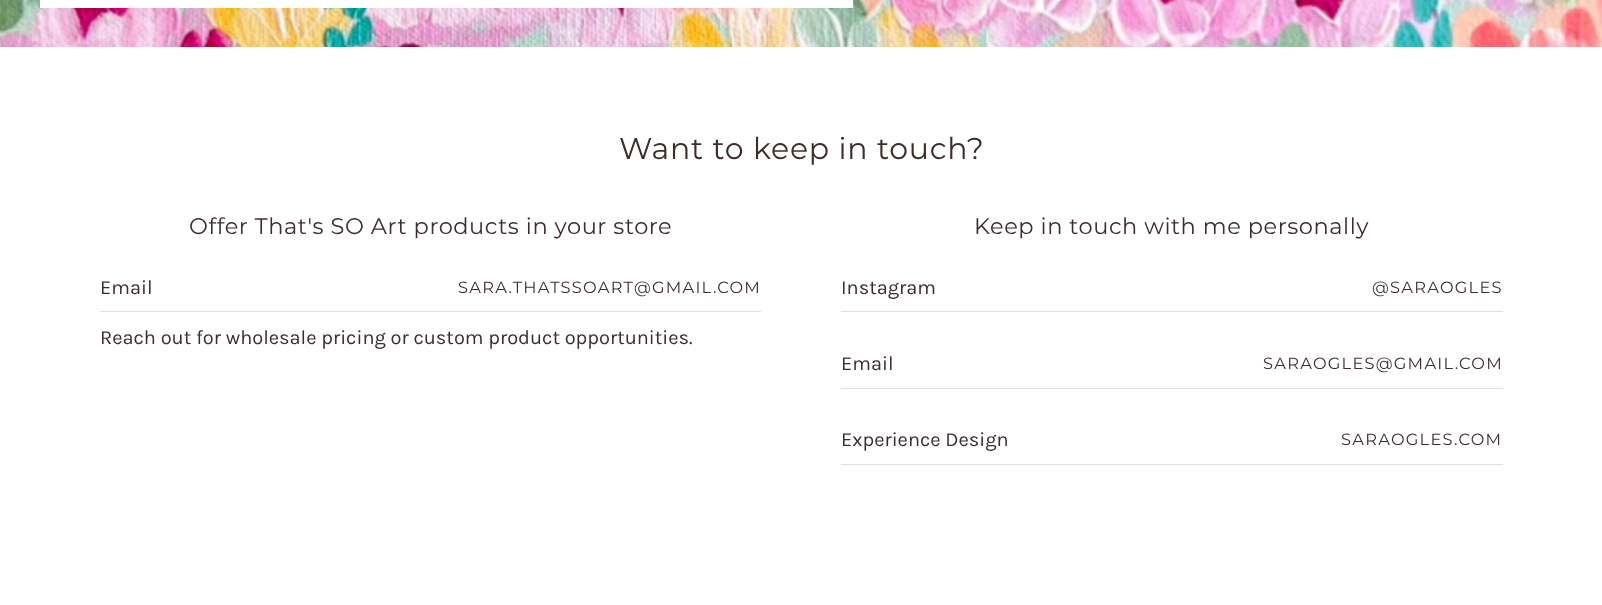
<!DOCTYPE html>
<meta charset="utf-8">
<style>body { margin: 0 } canvas { display: block }</style>
<canvas id="canvas" width="1602" height="605"></canvas>
<img id="img1" src="img_01.png" hidden>
<script>
window.onload = function () {
	const canvas = document.getElementById("canvas");
	const ctx = canvas.getContext("2d");
	ctx.miterLimit = 4;
	ctx.fontKerning = "normal";
	function txt(s, x, y) {
		ctx.fillText(s, x, y);
	}
	function fill(x, y, w, h) {
		ctx.fillRect(x, y, w, h);
	}
	function img(id, x, y, w, h) {
		ctx.drawImage(document.getElementById(id), x, y, w, h);
	}

	ctx.fillStyle = "#FFFFFF";
	fill(0, 0, 1602, 605);
	img("img1", 0, 0, 1602, 47);
	fill(40, 0, 813, 8);
	ctx.fillStyle = "#E0E0E0";
	fill(100, 311, 661, 1);
	fill(841, 311, 662, 1);
	fill(841, 388, 662, 1);
	fill(841, 464, 662, 1);
	ctx.letterSpacing = "0.75px";
	ctx.font = "30px Montserrat";
	ctx.fillStyle = "#3D2D2D";
	txt("Want to keep in touch?", 619, 159);
	ctx.letterSpacing = "0.55px";
	ctx.font = "22.5px Montserrat";
	txt("Offer That's SO Art products in your store", 189, 234);
	ctx.letterSpacing = "0px";
	ctx.font = "20px Karla";
	txt("Email", 100, 294);
	ctx.letterSpacing = "1.25px";
	ctx.font = "16.25px Montserrat";
	txt("SARA.THATSSOART@GMAIL.COM", 458, 293);
	ctx.letterSpacing = "0px";
	ctx.font = "20px Karla";
	txt("Reach out for wholesale pricing or custom product opportunities.", 100, 344);
	ctx.letterSpacing = "0.55px";
	ctx.font = "22.5px Montserrat";
	txt("Keep in touch with me personally", 974, 234);
	ctx.letterSpacing = "0px";
	ctx.font = "20px Karla";
	txt("Instagram", 841, 294);
	ctx.letterSpacing = "1.25px";
	ctx.font = "16.25px Montserrat";
	txt("@SARAOGLES", 1372, 293);
	ctx.letterSpacing = "0px";
	ctx.font = "20px Karla";
	txt("Email", 841, 370);
	ctx.letterSpacing = "1.25px";
	ctx.font = "16.25px Montserrat";
	txt("SARAOGLES@GMAIL.COM", 1263, 369);
	ctx.letterSpacing = "0px";
	ctx.font = "20px Karla";
	txt("Experience Design", 841, 446);
	ctx.letterSpacing = "1.25px";
	ctx.font = "16.25px Montserrat";
	txt("SARAOGLES.COM", 1341, 445);
};
</script>
